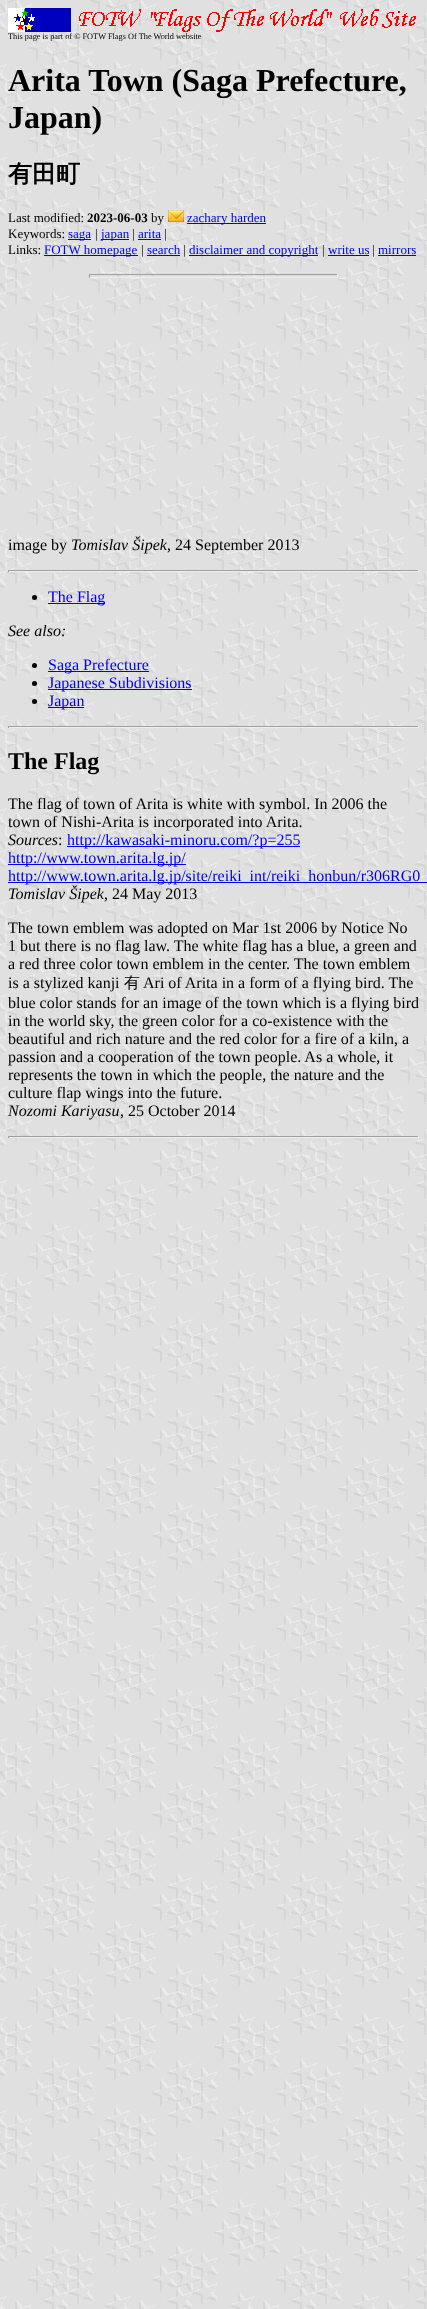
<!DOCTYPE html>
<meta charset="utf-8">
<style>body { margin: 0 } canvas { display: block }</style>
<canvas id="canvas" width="427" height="2309"></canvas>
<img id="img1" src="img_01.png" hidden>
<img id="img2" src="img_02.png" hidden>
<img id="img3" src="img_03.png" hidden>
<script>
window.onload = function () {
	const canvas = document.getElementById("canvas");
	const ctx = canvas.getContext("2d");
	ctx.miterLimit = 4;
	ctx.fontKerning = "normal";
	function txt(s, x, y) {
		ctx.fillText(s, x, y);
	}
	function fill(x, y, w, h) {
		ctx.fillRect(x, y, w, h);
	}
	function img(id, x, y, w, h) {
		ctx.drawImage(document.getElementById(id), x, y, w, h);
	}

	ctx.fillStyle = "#FFFFFF";
	fill(0, 0, 427, 2309);
	img("img1", 0, 0, 427, 2309);
	img("img2", 8, 8, 408, 24);
	img("img3", 168, 210, 16, 12);
	ctx.fillStyle = "#0000EE";
	fill(187, 223, 79, 1);
	fill(68, 239, 23, 1);
	fill(101, 239, 28, 1);
	fill(138, 239, 23, 1);
	fill(44, 255, 94, 1);
	fill(147, 255, 33, 1);
	fill(189, 255, 129, 1);
	fill(328, 255, 41, 1);
	fill(378, 255, 38, 1);
	ctx.fillStyle = "#9F9F9F";
	fill(89, 274, 249, 1);
	ctx.fillStyle = "#EEEEEE";
	fill(337, 274, 1, 4);
	fill(89, 277, 249, 1);
	ctx.fillStyle = "#9F9F9F";
	fill(89, 274, 1, 4);
	fill(8, 570, 411, 1);
	ctx.fillStyle = "#EEEEEE";
	fill(418, 570, 1, 2);
	fill(8, 571, 411, 1);
	ctx.fillStyle = "#9F9F9F";
	fill(8, 570, 1, 2);
	ctx.fillStyle = "#000000";
	ctx.beginPath();
	ctx.arc(34.5, 597.5, 2.5, 0, Math.PI * 2);
	ctx.fill();
	ctx.fillStyle = "#0000EE";
	fill(48, 603, 57, 1);
	ctx.fillStyle = "#000000";
	ctx.beginPath();
	ctx.arc(34.5, 665.5, 2.5, 0, Math.PI * 2);
	ctx.fill();
	ctx.fillStyle = "#0000EE";
	fill(48, 671, 101, 1);
	ctx.fillStyle = "#000000";
	ctx.beginPath();
	ctx.arc(34.5, 683.5, 2.5, 0, Math.PI * 2);
	ctx.fill();
	ctx.fillStyle = "#0000EE";
	fill(48, 689, 144, 1);
	ctx.fillStyle = "#000000";
	ctx.beginPath();
	ctx.arc(34.5, 701.5, 2.5, 0, Math.PI * 2);
	ctx.fill();
	ctx.fillStyle = "#0000EE";
	fill(48, 707, 36, 1);
	ctx.fillStyle = "#9F9F9F";
	fill(8, 726, 411, 1);
	ctx.fillStyle = "#EEEEEE";
	fill(418, 726, 1, 2);
	fill(8, 727, 411, 1);
	ctx.fillStyle = "#9F9F9F";
	fill(8, 726, 1, 2);
	ctx.fillStyle = "#0000EE";
	fill(67, 846, 233, 1);
	fill(8, 864, 178, 1);
	fill(8, 882, 419, 1);
	ctx.fillStyle = "#9F9F9F";
	fill(8, 1136, 411, 1);
	ctx.fillStyle = "#EEEEEE";
	fill(418, 1136, 1, 2);
	fill(8, 1137, 411, 1);
	ctx.fillStyle = "#9F9F9F";
	fill(8, 1136, 1, 2);
	ctx.font = "8.3px Liberation Serif";
	ctx.fillStyle = "#000000";
	txt("This page is part of © FOTW Flags Of The World website", 8, 39);
	ctx.font = "bold 32px Liberation Serif";
	txt("Arita Town (Saga Prefecture,", 8, 91);
	txt("Japan)", 8, 128);
	ctx.font = "bold 24px WenQuanYi Zen Hei";
	txt("有田町", 8, 182);
	ctx.font = "13px Liberation Serif";
	txt("Last modified:", 8, 222);
	ctx.font = "bold 13px Liberation Serif";
	txt("2023-06-03", 87, 222);
	ctx.font = "13px Liberation Serif";
	txt("by", 151, 222);
	ctx.fillStyle = "#0000EE";
	txt("zachary harden", 187, 222);
	ctx.fillStyle = "#000000";
	txt("Keywords:", 8, 238);
	ctx.fillStyle = "#0000EE";
	txt("saga", 68, 238);
	ctx.fillStyle = "#000000";
	txt("|", 95, 238);
	ctx.fillStyle = "#0000EE";
	txt("japan", 101, 238);
	ctx.fillStyle = "#000000";
	txt("|", 132, 238);
	ctx.fillStyle = "#0000EE";
	txt("arita", 138, 238);
	ctx.fillStyle = "#000000";
	txt("|", 164, 238);
	txt("Links:", 8, 254);
	ctx.fillStyle = "#0000EE";
	txt("FOTW homepage", 44, 254);
	ctx.fillStyle = "#000000";
	txt("|", 141, 254);
	ctx.fillStyle = "#0000EE";
	txt("search", 147, 254);
	ctx.fillStyle = "#000000";
	txt("|", 183, 254);
	ctx.fillStyle = "#0000EE";
	txt("disclaimer and copyright", 189, 254);
	ctx.fillStyle = "#000000";
	txt("|", 322, 254);
	ctx.fillStyle = "#0000EE";
	txt("write us", 328, 254);
	ctx.fillStyle = "#000000";
	txt("|", 372, 254);
	ctx.fillStyle = "#0000EE";
	txt("mirrors", 378, 254);
	ctx.font = "16px Liberation Serif";
	ctx.fillStyle = "#000000";
	txt("image by", 8, 550);
	ctx.font = "italic 16px Liberation Serif";
	txt("Tomislav Šipek", 71, 550);
	ctx.font = "16px Liberation Serif";
	txt(", 24 September 2013", 167, 550);
	ctx.fillStyle = "#0000EE";
	txt("The Flag", 48, 602);
	ctx.font = "italic 16px Liberation Serif";
	ctx.fillStyle = "#000000";
	txt("See also:", 8, 636);
	ctx.font = "16px Liberation Serif";
	ctx.fillStyle = "#0000EE";
	txt("Saga Prefecture", 48, 670);
	txt("Japanese Subdivisions", 48, 688);
	txt("Japan", 48, 706);
	ctx.font = "bold 24px Liberation Serif";
	ctx.fillStyle = "#000000";
	txt("The Flag", 8, 769);
	ctx.font = "16px Liberation Serif";
	txt("The flag of town of Arita is white with symbol. In 2006 the", 8, 809);
	txt("town of Nishi-Arita is incorporated into Arita.", 8, 827);
	ctx.font = "italic 16px Liberation Serif";
	txt("Sources", 8, 845);
	ctx.font = "16px Liberation Serif";
	txt(":", 58, 845);
	ctx.fillStyle = "#0000EE";
	txt("http://kawasaki-minoru.com/?p=255", 67, 845);
	txt("http://www.town.arita.lg.jp/", 8, 863);
	txt("http://www.town.arita.lg.jp/site/reiki_int/reiki_honbun/r306RG0", 8, 881);
	ctx.font = "italic 16px Liberation Serif";
	ctx.fillStyle = "#000000";
	txt("Tomislav Šipek", 8, 899);
	ctx.font = "16px Liberation Serif";
	txt(", 24 May 2013", 104, 899);
	txt("The town emblem was adopted on Mar 1st 2006 by Notice No", 8, 933);
	txt("1 but there is no flag law. The white flag has a blue, a green and", 8, 951);
	txt("a red three color town emblem in the center. The town emblem", 8, 969);
	txt("is a stylized kanji", 8, 988);
	ctx.font = "500 16px WenQuanYi Zen Hei";
	txt("有", 124, 988);
	ctx.font = "16px Liberation Serif";
	txt("Ari of Arita in a form of a flying bird. The", 143, 988);
	txt("blue color stands for an image of the town which is a flying bird", 8, 1008);
	txt("in the world sky, the green color for a co-existence with the", 8, 1026);
	txt("beautiful and rich nature and the red color for a fire of a kiln, a", 8, 1044);
	txt("passion and a cooperation of the town people. As a whole, it", 8, 1062);
	txt("represents the town in which the people, the nature and the", 8, 1080);
	txt("culture flap wings into the future.", 8, 1098);
	ctx.font = "italic 16px Liberation Serif";
	txt("Nozomi Kariyasu", 8, 1116);
	ctx.font = "16px Liberation Serif";
	txt(", 25 October 2014", 120, 1116);
};
</script>
